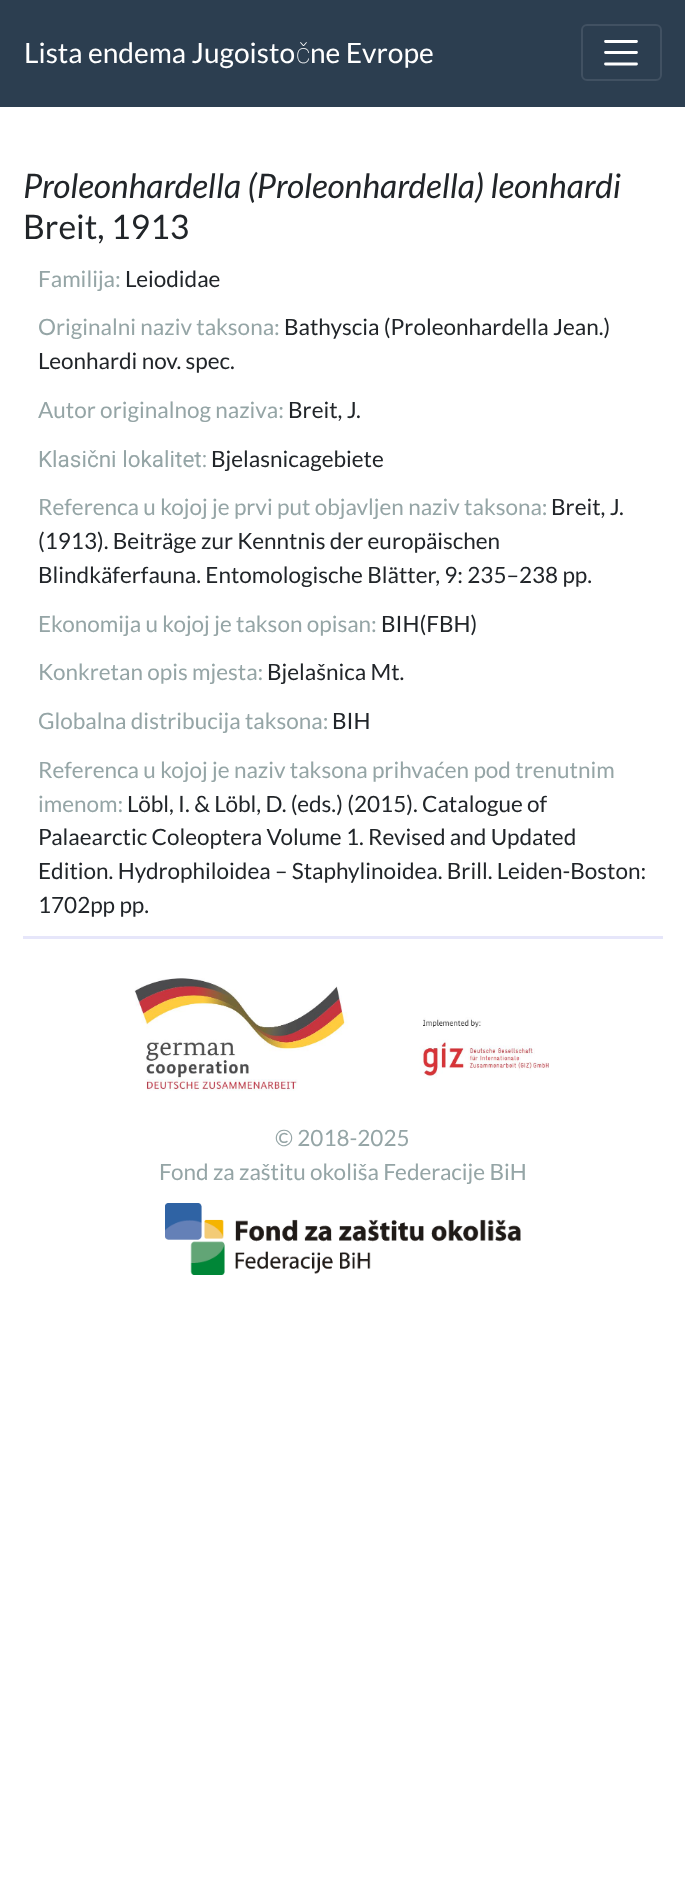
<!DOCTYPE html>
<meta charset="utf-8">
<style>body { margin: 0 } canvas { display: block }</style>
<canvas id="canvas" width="685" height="1884"></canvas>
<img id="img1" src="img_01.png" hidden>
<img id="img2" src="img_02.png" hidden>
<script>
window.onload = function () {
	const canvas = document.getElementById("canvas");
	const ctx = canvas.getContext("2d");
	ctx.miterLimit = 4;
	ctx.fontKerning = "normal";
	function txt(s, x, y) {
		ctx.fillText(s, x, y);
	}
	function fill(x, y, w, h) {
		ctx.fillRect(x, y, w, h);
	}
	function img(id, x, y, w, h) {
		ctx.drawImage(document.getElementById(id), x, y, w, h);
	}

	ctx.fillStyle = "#FFFFFF";
	fill(0, 0, 685, 1884);
	ctx.fillStyle = "#2C3E50";
	fill(0, 0, 685, 107);
	ctx.beginPath();
	ctx.roundRect(582, 25, 79, 55, 5);
	ctx.strokeStyle = "#415162";
	ctx.lineWidth = 2;
	ctx.stroke();
	ctx.beginPath();
	ctx.moveTo(605.5, 41.5);
	ctx.lineTo(636.5, 41.5);
	ctx.moveTo(605.5, 52.5);
	ctx.lineTo(636.5, 52.5);
	ctx.moveTo(605.5, 64);
	ctx.lineTo(636.5, 64);
	ctx.strokeStyle = "#FFFFFF";
	ctx.lineWidth = 2.8;
	ctx.lineCap = "round";
	ctx.stroke();
	ctx.fillStyle = "#E6E6FA";
	fill(23, 936, 640, 3);
	img("img1", 134, 978, 415, 113);
	img("img2", 165, 1203, 356, 72);
	ctx.font = "28.1px Lato";
	ctx.fillStyle = "#FFFFFF";
	txt("Lista endema Jugoisto", 24, 63);
	ctx.font = "100 28.1px Roboto";
	txt("č", 296, 63);
	ctx.font = "28.1px Lato";
	txt("ne Evrope", 310, 63);
	ctx.font = "italic 33.75px Lato";
	ctx.fillStyle = "#212529";
	txt("Proleonhardella (Proleonhardella) leonhardi", 23, 198);
	ctx.font = "33.75px Lato";
	txt("Breit, 1913", 23, 239);
	ctx.font = "22.5px Lato";
	ctx.fillStyle = "#95A5A6";
	txt("Familija:", 38, 287);
	ctx.fillStyle = "#212529";
	txt("Leiodidae", 125, 287);
	ctx.fillStyle = "#95A5A6";
	txt("Originalni naziv taksona:", 38, 335);
	ctx.fillStyle = "#212529";
	txt("Bathyscia (Proleonhardella Jean.)", 284, 335);
	txt("Leonhardi nov. spec.", 38, 369);
	ctx.fillStyle = "#95A5A6";
	txt("Autor originalnog naziva:", 38, 418);
	ctx.fillStyle = "#212529";
	txt("Breit, J.", 288, 418);
	ctx.font = "22.5px Roboto";
	ctx.fillStyle = "#95A5A6";
	txt("Klasični lokalitet:", 38, 467);
	ctx.font = "22.5px Lato";
	ctx.fillStyle = "#212529";
	txt("Bjelasnicagebiete", 211, 467);
	ctx.fillStyle = "#95A5A6";
	txt("Referenca u kojoj je prvi put objavljen naziv taksona:", 38, 515);
	ctx.fillStyle = "#212529";
	txt("Breit, J.", 551, 515);
	txt("(1913). Beiträge zur Kenntnis der europäischen", 38, 549);
	txt("Blindkäferfauna. Entomologische Blätter, 9: 235–238 pp.", 38, 583);
	ctx.fillStyle = "#95A5A6";
	txt("Ekonomija u kojoj je takson opisan:", 38, 632);
	ctx.fillStyle = "#212529";
	txt("BIH(FBH)", 381, 632);
	ctx.fillStyle = "#95A5A6";
	txt("Konkretan opis mjesta:", 38, 680);
	ctx.fillStyle = "#212529";
	txt("Bjelašnica Mt.", 267, 680);
	ctx.fillStyle = "#95A5A6";
	txt("Globalna distribucija taksona:", 38, 729);
	ctx.fillStyle = "#212529";
	txt("BIH", 332, 729);
	ctx.fillStyle = "#95A5A6";
	txt("Referenca u kojoj je naziv taksona prihvaćen pod trenutnim", 38, 778);
	txt("imenom:", 38, 812);
	ctx.fillStyle = "#212529";
	txt("Löbl, I. & Löbl, D. (eds.) (2015). Catalogue of", 127, 812);
	txt("Palaearctic Coleoptera Volume 1. Revised and Updated", 38, 845);
	txt("Edition. Hydrophiloidea – Staphylinoidea. Brill. Leiden-Boston:", 38, 879);
	txt("1702pp pp.", 38, 913);
	ctx.fillStyle = "#95A5A6";
	txt("© 2018-2025", 275, 1146);
	txt("Fond za zaštitu okoliša Federacije BiH", 159, 1180);
};
</script>
